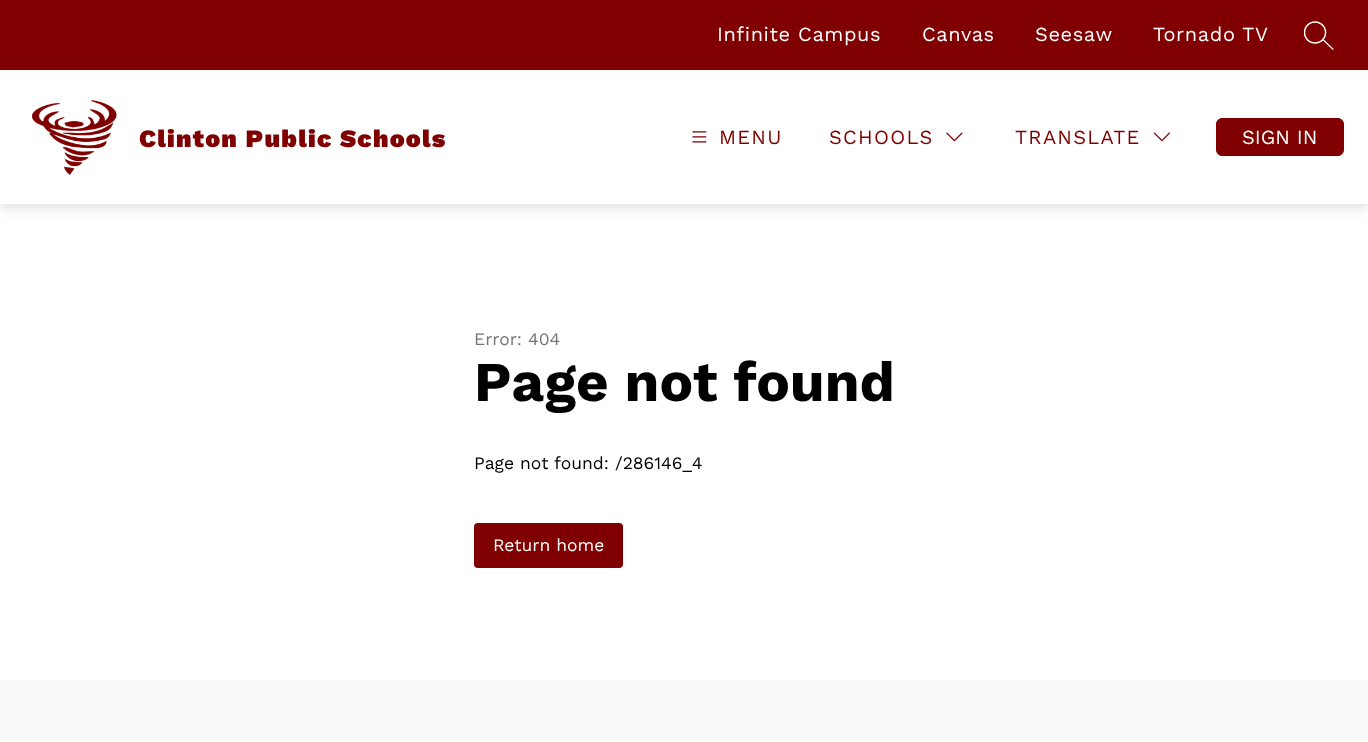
<!DOCTYPE html>
<meta charset="utf-8">
<style>body { margin: 0 } canvas { display: block }</style>
<canvas id="canvas" width="1368" height="742"></canvas>
<img id="img1" src="img_01.png" hidden>
<img id="img2" src="img_02.png" hidden>
<img id="img3" src="img_03.png" hidden>
<img id="img4" src="img_04.png" hidden>
<img id="img5" src="img_05.png" hidden>
<script>
window.onload = function () {
	const canvas = document.getElementById("canvas");
	const ctx = canvas.getContext("2d");
	ctx.miterLimit = 4;
	ctx.fontKerning = "normal";
	function txt(s, x, y) {
		ctx.fillText(s, x, y);
	}
	function fill(x, y, w, h) {
		ctx.fillRect(x, y, w, h);
	}
	function round(x, y, w, h, r) {
		ctx.beginPath();
		ctx.roundRect(x, y, w, h, r);
		ctx.fill();
	}
	function img(id, x, y, w, h) {
		ctx.drawImage(document.getElementById(id), x, y, w, h);
	}

	ctx.fillStyle = "#FFFFFF";
	fill(0, 0, 1368, 742);
	ctx.fillStyle = "rgba(0, 0, 0, 0.1)";
	ctx.filter = "blur(6px)";
	ctx.beginPath();
	ctx.rect(0, 5, 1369, 204);
	ctx.fill();
	ctx.filter = "none";
	ctx.fillStyle = "#FFFFFF";
	fill(0, 70, 1368, 134);
	ctx.fillStyle = "#800001";
	fill(0, 0, 1368, 70);
	img("img1", 1304, 21, 30, 29);
	img("img2", 32, 100, 85, 75);
	img("img3", 692, 131, 15, 12);
	img("img4", 946, 132, 17, 10);
	img("img5", 1153, 132, 17, 10);
	ctx.beginPath();
	ctx.roundRect(1216.5, 118.5, 127, 37, 5.5);
	ctx.fill();
	ctx.strokeStyle = "#800001";
	ctx.stroke();
	round(474, 523, 149, 45, 4);
	ctx.fillStyle = "#F9F9F9";
	fill(0, 680, 1368, 62);
	ctx.letterSpacing = "0.6px";
	ctx.font = "20px Work Sans";
	ctx.fillStyle = "#FFFFFF";
	txt("Infinite Campus", 717, 41);
	txt("Canvas", 922, 41);
	txt("Seesaw", 1035, 41);
	txt("Tornado TV", 1153, 41);
	ctx.letterSpacing = "1.25px";
	ctx.font = "900 25px Work Sans";
	ctx.fillStyle = "#800001";
	txt("Clinton Public Schools", 139, 147);
	ctx.font = "20px Work Sans";
	txt("MENU", 719, 144);
	txt("SCHOOLS", 829, 144);
	txt("TRANSLATE", 1015, 144);
	ctx.letterSpacing = "0px";
	ctx.fillStyle = "#FFFFFF";
	txt("SIGN IN", 1242, 144);
	ctx.font = "17.5px Work Sans";
	ctx.fillStyle = "#747474";
	txt("Error: 404", 474, 345);
	ctx.font = "bold 56.25px Work Sans";
	ctx.fillStyle = "#000000";
	txt("Page not found", 474, 401);
	ctx.font = "17.5px Work Sans";
	txt("Page not found: /286146_4", 474, 469);
	ctx.fillStyle = "#FFFFFF";
	txt("Return home", 493, 551);
};
</script>
